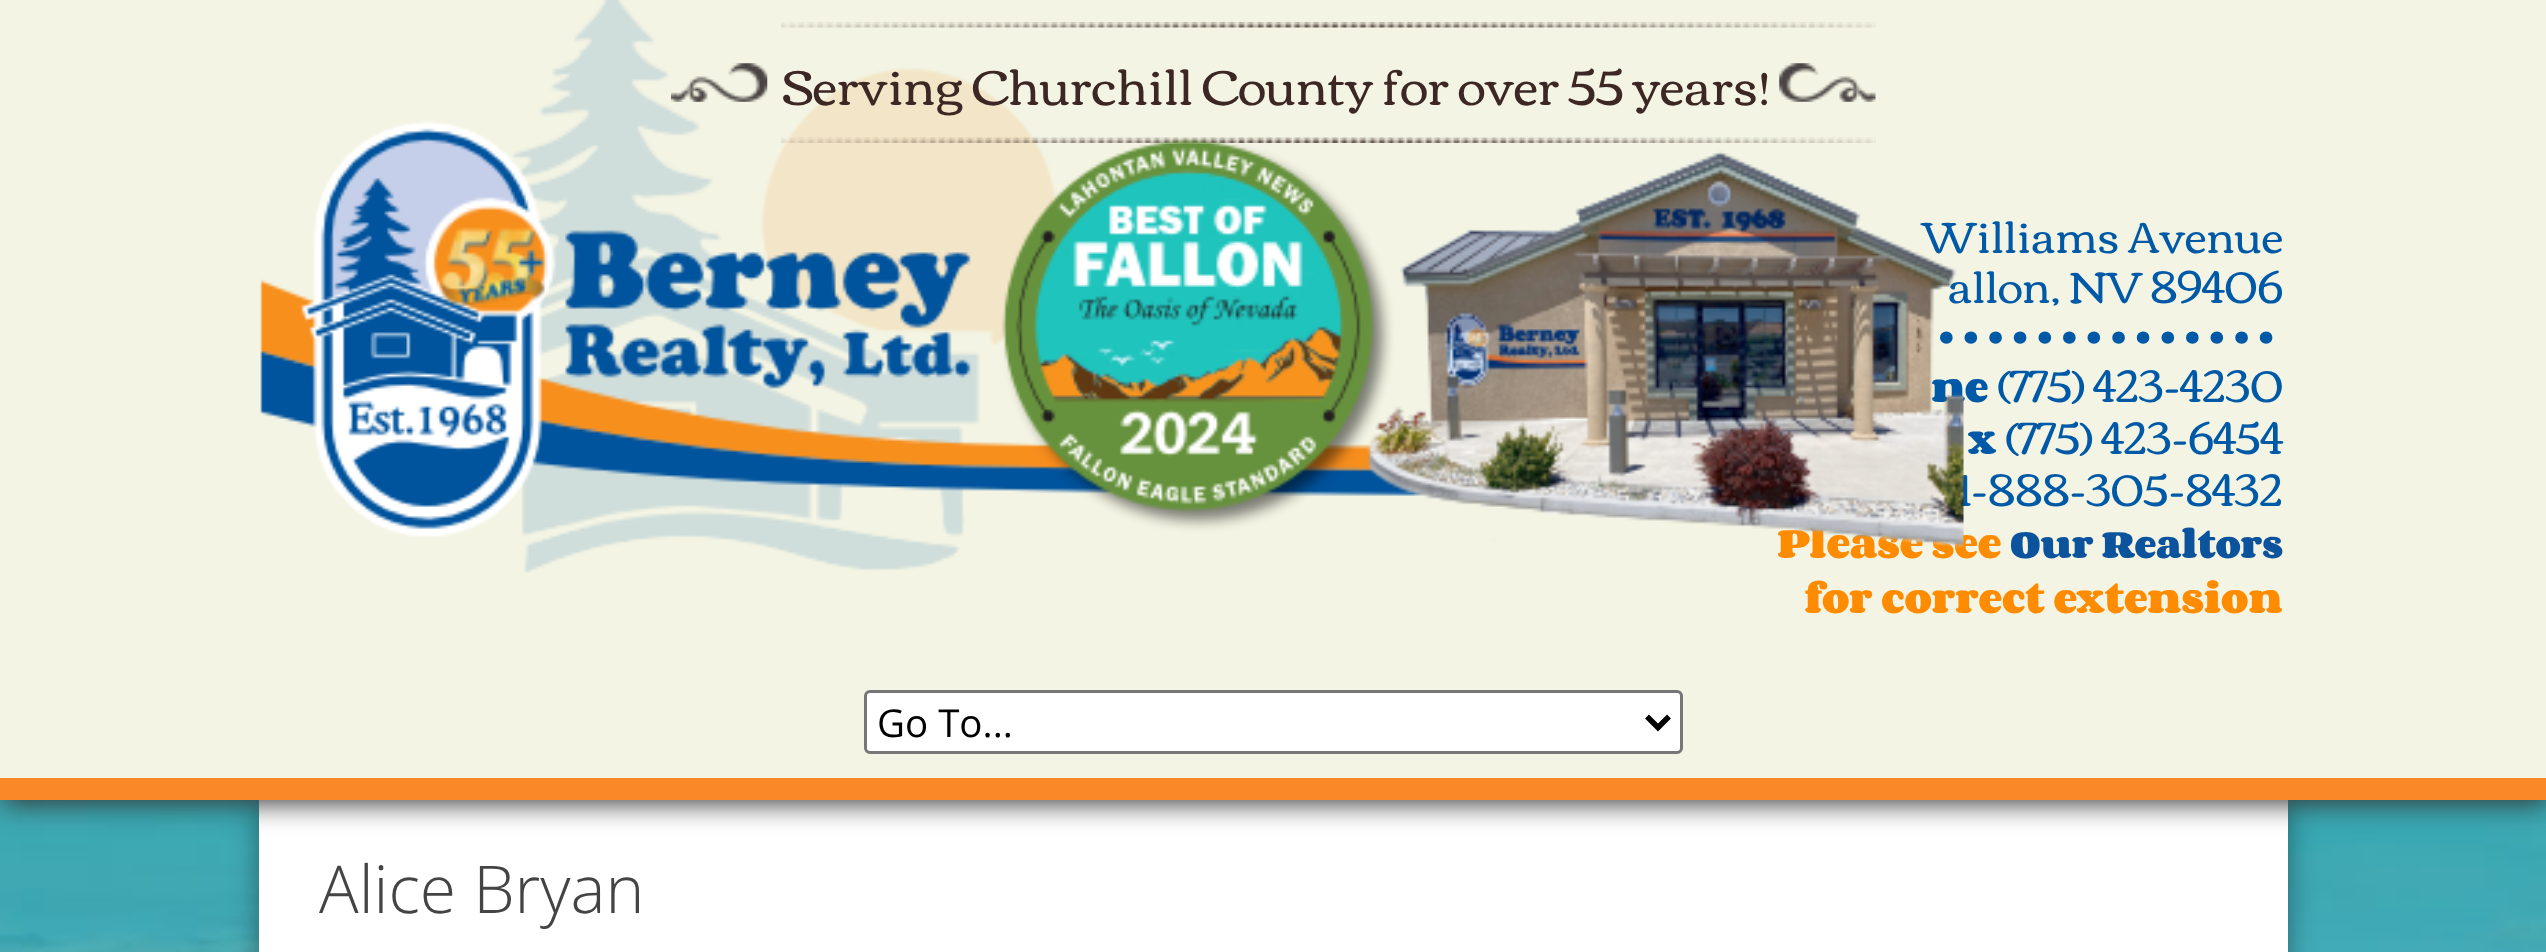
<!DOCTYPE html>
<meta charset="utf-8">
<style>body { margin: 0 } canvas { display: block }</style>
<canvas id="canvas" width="2546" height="952"></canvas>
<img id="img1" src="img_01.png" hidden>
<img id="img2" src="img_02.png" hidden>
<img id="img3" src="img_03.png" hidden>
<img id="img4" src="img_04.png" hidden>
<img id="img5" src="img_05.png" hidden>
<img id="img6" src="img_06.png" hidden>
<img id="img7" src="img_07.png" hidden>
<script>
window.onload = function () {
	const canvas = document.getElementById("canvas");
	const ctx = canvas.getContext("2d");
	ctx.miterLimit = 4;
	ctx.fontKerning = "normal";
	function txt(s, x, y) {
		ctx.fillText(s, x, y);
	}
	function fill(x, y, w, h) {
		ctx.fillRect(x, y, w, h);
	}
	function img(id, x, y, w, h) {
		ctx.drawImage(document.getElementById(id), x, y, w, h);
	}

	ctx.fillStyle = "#FFFFFF";
	fill(0, 0, 2546, 952);
	img("img1", 0, 800, 2546, 152);
	ctx.fillStyle = "rgba(0, 0, 0, 0.4)";
	ctx.filter = "blur(14px)";
	ctx.beginPath();
	ctx.rect(259, 800, 2029, 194);
	ctx.fill();
	ctx.filter = "none";
	ctx.fillStyle = "#FFFFFF";
	fill(259, 800, 2029, 152);
	ctx.fillStyle = "#333333";
	ctx.filter = "blur(14px)";
	ctx.beginPath();
	ctx.rect(3, 3, 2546, 800);
	ctx.fill();
	ctx.filter = "none";
	ctx.fillStyle = "#F3F4E3";
	fill(0, 0, 2546, 778);
	ctx.fillStyle = "#FA8826";
	fill(0, 778, 2546, 22);
	img("img2", 511, 0, 546, 573);
	img("img3", 671, 63, 97, 39);
	img("img4", 781, 22, 1095, 6);
	img("img5", 1779, 63, 97, 39);
	img("img6", 781, 137, 1095, 6);
	ctx.fillStyle = "#FFFFFF";
	ctx.beginPath();
	ctx.roundRect(865.5, 691.5, 816, 61, 4.5);
	ctx.fill();
	ctx.strokeStyle = "#767676";
	ctx.lineWidth = 3;
	ctx.stroke();
	ctx.beginPath();
	ctx.moveTo(1647, 716.5);
	ctx.lineTo(1658, 727.5);
	ctx.lineTo(1669, 716.5);
	ctx.strokeStyle = "#000000";
	ctx.lineWidth = 5.5;
	ctx.stroke();
	ctx.font = "49.5px Corben";
	ctx.fillStyle = "#3C2724";
	txt("Serving Churchill County for over 55 years!", 782, 105);
	ctx.font = "44px Corben";
	ctx.fillStyle = "#0059A7";
	txt("Williams Avenue", 1922, 253);
	txt("allon, NV 89406", 1948, 303);
	txt("• • • • • • • • • • • • • •", 1938, 352);
	ctx.font = "bold 35.75px Corben";
	txt("ne", 1931, 402);
	ctx.font = "44px Corben";
	txt("(775) 423-4230", 1997, 402);
	ctx.font = "bold 35.75px Corben";
	txt("x", 1968, 454);
	ctx.font = "44px Corben";
	txt("(775) 423-6454", 2005, 454);
	txt("1-888-305-8432", 1958, 506);
	ctx.font = "bold 35.75px Corben";
	ctx.fillStyle = "#FF8C00";
	txt("Please see", 1777, 558);
	img("img7", 260, 120, 1704, 428);
	ctx.font = "bold 33px Corben";
	ctx.fillStyle = "#0B539C";
	txt("Our Realtors", 2010, 558);
	ctx.font = "bold 35.75px Corben";
	ctx.fillStyle = "#FF8C00";
	txt("for correct extension", 1804, 613);
	ctx.font = "38.5px Open Sans";
	ctx.fillStyle = "#000000";
	txt("Go To...", 877, 737);
	ctx.font = "300 66px Open Sans";
	ctx.fillStyle = "#444444";
	txt("Alice Bryan", 319, 913);
};
</script>
